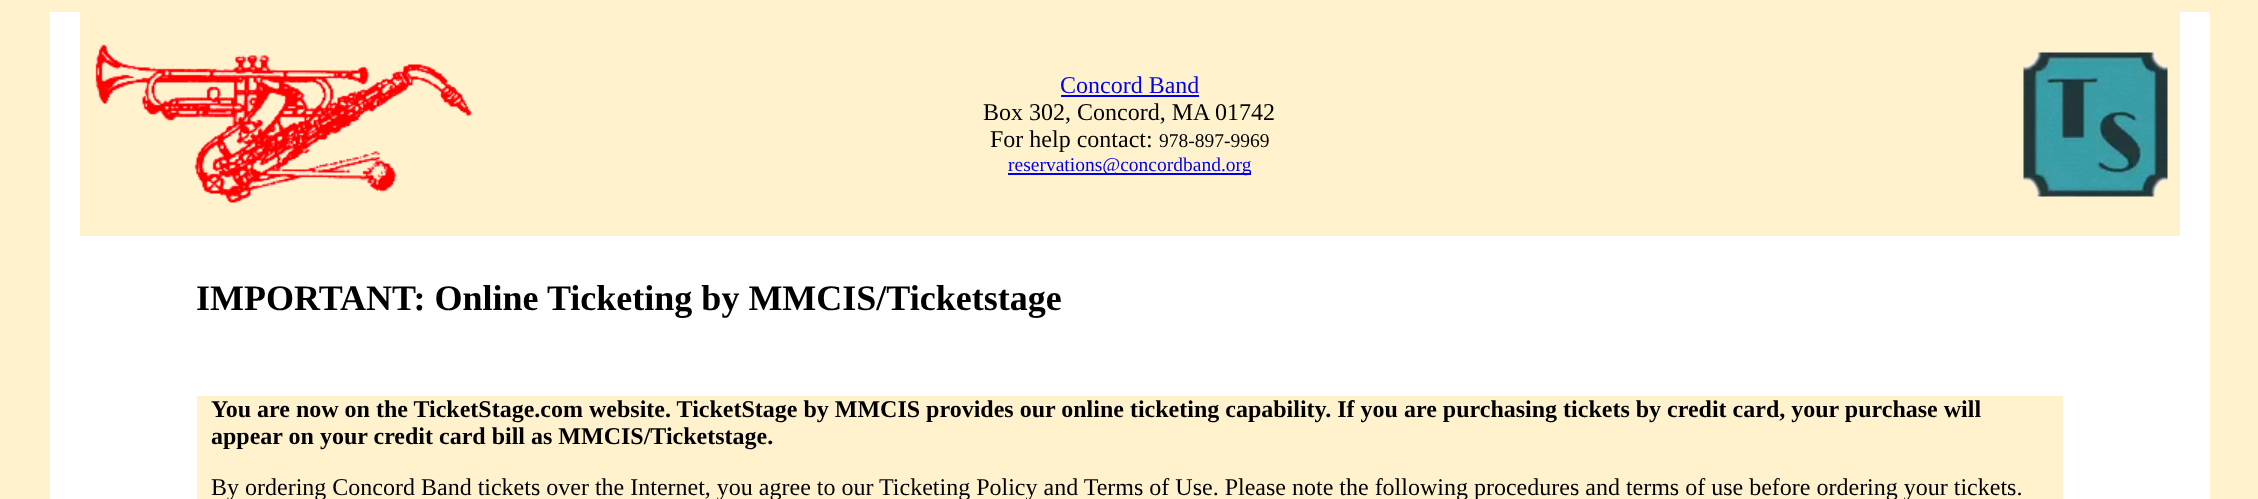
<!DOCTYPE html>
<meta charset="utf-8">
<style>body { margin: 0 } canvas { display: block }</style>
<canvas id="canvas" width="2258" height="499"></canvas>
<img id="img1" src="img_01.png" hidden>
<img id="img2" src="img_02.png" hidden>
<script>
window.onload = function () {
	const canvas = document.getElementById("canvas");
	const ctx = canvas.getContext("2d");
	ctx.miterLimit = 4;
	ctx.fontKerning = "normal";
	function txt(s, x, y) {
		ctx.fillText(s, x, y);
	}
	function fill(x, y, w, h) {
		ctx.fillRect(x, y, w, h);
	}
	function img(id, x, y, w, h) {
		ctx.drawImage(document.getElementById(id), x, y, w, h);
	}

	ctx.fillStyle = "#FFF2CC";
	fill(0, 0, 2258, 499);
	ctx.fillStyle = "#FFFFFF";
	fill(50, 12, 2160, 487);
	ctx.fillStyle = "#FFF2CC";
	fill(80, 12, 2100, 224);
	img("img1", 95, 44, 377, 159);
	ctx.fillStyle = "#0000EE";
	fill(1061, 95, 138, 2);
	fill(1008, 173, 243, 2);
	img("img2", 2023, 52, 145, 145);
	ctx.fillStyle = "#FFF2CC";
	fill(197, 396, 1866, 103);
	ctx.font = "24px Liberation Serif";
	ctx.fillStyle = "#0000EE";
	txt("Concord Band", 1060, 93);
	ctx.fillStyle = "#000000";
	txt("Box 302, Concord, MA 01742", 983, 120);
	txt("For help contact:", 990, 147);
	ctx.font = "19.5px Liberation Serif";
	txt("978-897-9969", 1159, 147);
	ctx.fillStyle = "#0000EE";
	txt("reservations@concordband.org", 1008, 171);
	ctx.font = "bold 36px Liberation Serif";
	ctx.fillStyle = "#000000";
	txt("IMPORTANT: Online", 196, 310);
	txt("Ticketing by MMCIS/Ticketstage", 547, 310);
	ctx.font = "bold 24px Liberation Serif";
	txt("You are now on the TicketStage.com website. TicketStage by MMCIS provides our online ticketing capability. If you are purchasing tickets by credit card, your purchase will", 211, 417);
	txt("appear on your credit card bill as MMCIS/Ticketstage.", 211, 444);
	ctx.font = "24px Liberation Serif";
	txt("By ordering Concord Band tickets over the Internet, you agree to our Ticketing Policy and Terms of Use. Please note the following procedures and terms of use before ordering your tickets.", 211, 495);
};
</script>
